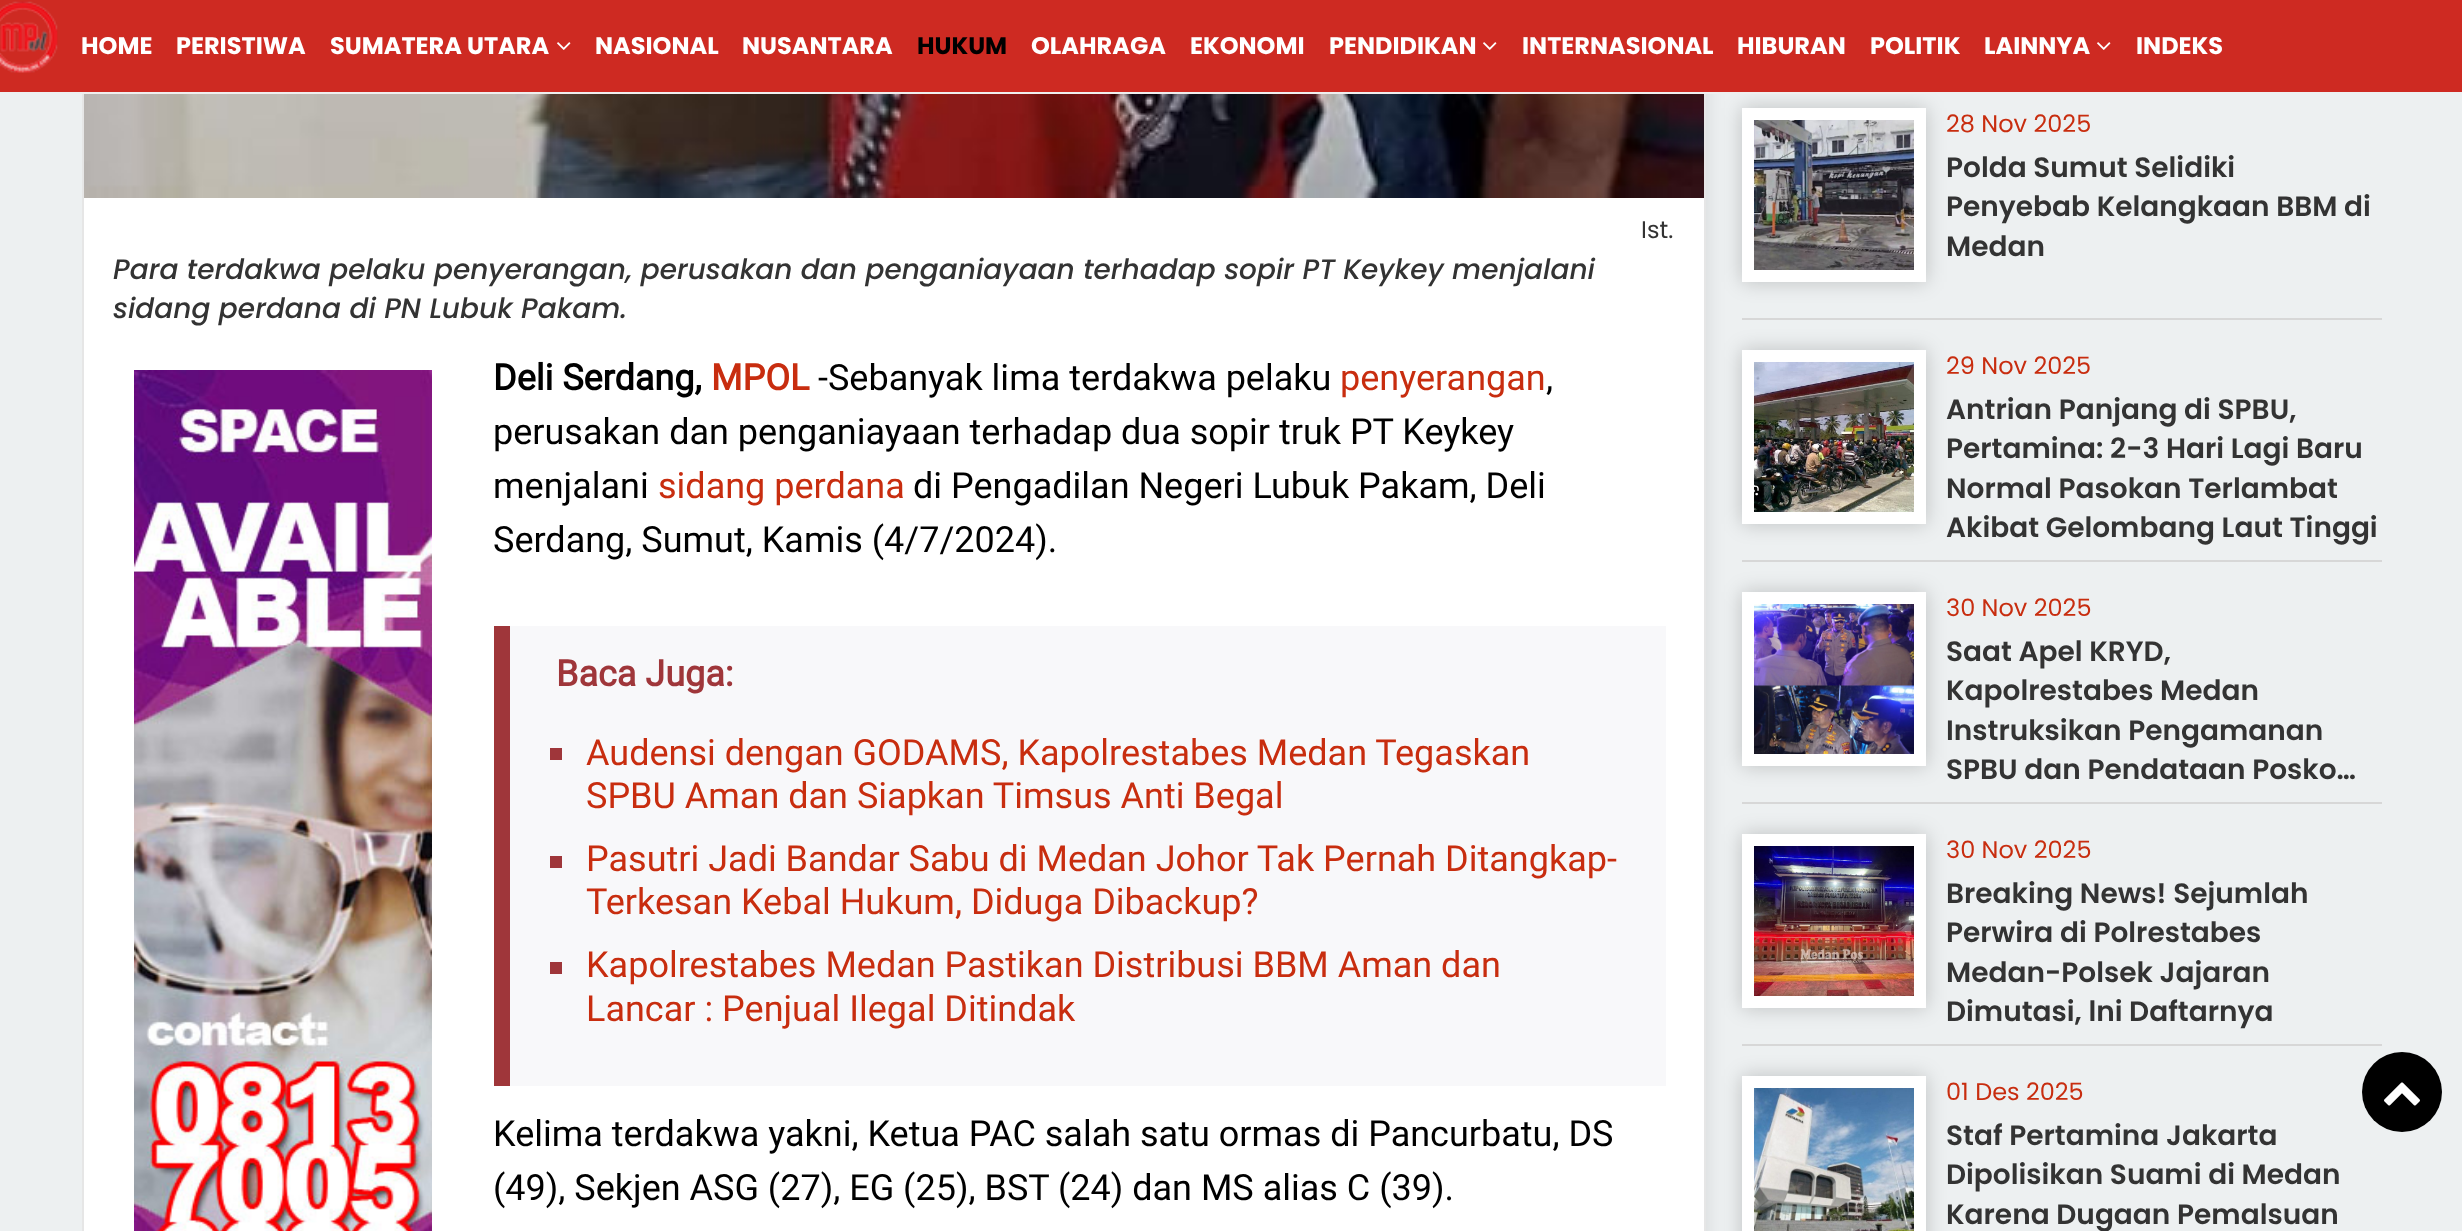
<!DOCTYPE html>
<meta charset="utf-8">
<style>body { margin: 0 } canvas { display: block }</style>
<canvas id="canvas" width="2462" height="1231"></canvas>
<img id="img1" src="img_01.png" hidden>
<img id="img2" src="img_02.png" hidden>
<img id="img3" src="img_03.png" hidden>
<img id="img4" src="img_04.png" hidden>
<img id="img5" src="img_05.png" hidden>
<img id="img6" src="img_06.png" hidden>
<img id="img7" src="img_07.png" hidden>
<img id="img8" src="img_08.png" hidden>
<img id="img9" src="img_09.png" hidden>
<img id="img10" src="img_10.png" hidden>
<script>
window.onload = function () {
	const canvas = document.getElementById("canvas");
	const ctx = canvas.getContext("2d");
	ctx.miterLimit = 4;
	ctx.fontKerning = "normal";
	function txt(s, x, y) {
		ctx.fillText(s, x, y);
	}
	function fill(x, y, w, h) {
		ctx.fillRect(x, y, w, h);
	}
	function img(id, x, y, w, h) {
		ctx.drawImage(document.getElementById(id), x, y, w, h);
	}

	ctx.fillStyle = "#EDF0F1";
	fill(0, 0, 2462, 1231);
	ctx.save();
	ctx.beginPath();
	ctx.rect(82, 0, 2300, 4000);
	ctx.clip();
	ctx.fillStyle = "rgba(0, 0, 0, 0.1)";
	ctx.filter = "blur(10px)";
	ctx.beginPath();
	ctx.rect(82, -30, 1624, 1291);
	ctx.fill();
	ctx.filter = "none";
	ctx.restore();
	ctx.fillStyle = "#FFFFFF";
	fill(84, 198, 1620, 1033);
	ctx.strokeStyle = "#E6E6E6";
	ctx.lineWidth = 2;
	ctx.strokeRect(83, -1, 1622, 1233);
	ctx.fillStyle = "rgba(0, 0, 0, 0.2)";
	ctx.filter = "blur(10px)";
	ctx.beginPath();
	ctx.rect(1742, 108, 184, 174);
	ctx.fill();
	ctx.filter = "none";
	ctx.fillStyle = "#CE2A22";
	fill(0, 0, 2462, 92);
	ctx.fillStyle = "#EFEFEF";
	fill(82, 92, 1853, 2);
	img("img1", 0, 1, 58, 72);
	img("img2", 557, 42, 14, 8);
	img("img2", 1483, 42, 14, 8);
	img("img2", 2097, 42, 14, 8);
	img("img3", 84, 94, 1620, 104);
	img("img4", 134, 370, 298, 861);
	ctx.fillStyle = "#F8F8FA";
	fill(510, 626, 1156, 460);
	ctx.fillStyle = "#9F363A";
	fill(494, 626, 16, 460);
	fill(550, 748, 12, 12);
	fill(550, 856, 12, 12);
	fill(550, 962, 12, 12);
	ctx.fillStyle = "#D7D7D7";
	fill(1742, 318, 640, 2);
	img("img5", 1754, 120, 160, 150);
	ctx.strokeStyle = "#FFFFFF";
	ctx.lineWidth = 12;
	ctx.strokeRect(1748, 114, 172, 162);
	fill(1742, 560, 640, 2);
	ctx.fillStyle = "rgba(0, 0, 0, 0.2)";
	ctx.filter = "blur(10px)";
	ctx.beginPath();
	ctx.rect(1742, 350, 184, 174);
	ctx.fill();
	ctx.filter = "none";
	img("img6", 1754, 362, 160, 150);
	ctx.strokeRect(1748, 356, 172, 162);
	ctx.fillStyle = "#D7D7D7";
	fill(1742, 802, 640, 2);
	ctx.fillStyle = "rgba(0, 0, 0, 0.2)";
	ctx.filter = "blur(10px)";
	ctx.beginPath();
	ctx.rect(1742, 592, 184, 174);
	ctx.fill();
	ctx.filter = "none";
	img("img7", 1754, 604, 160, 150);
	ctx.strokeRect(1748, 598, 172, 162);
	ctx.fillStyle = "#D7D7D7";
	fill(1742, 1044, 640, 2);
	ctx.fillStyle = "rgba(0, 0, 0, 0.2)";
	ctx.filter = "blur(10px)";
	ctx.beginPath();
	ctx.rect(1742, 834, 184, 174);
	ctx.fill();
	ctx.filter = "none";
	img("img8", 1754, 846, 160, 150);
	ctx.strokeRect(1748, 840, 172, 162);
	ctx.filter = "blur(10px)";
	ctx.beginPath();
	ctx.rect(1742, 1076, 184, 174);
	ctx.fill();
	ctx.filter = "none";
	img("img9", 1754, 1088, 160, 143);
	ctx.strokeRect(1748, 1082, 172, 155);
	ctx.fillStyle = "#000000";
	ctx.beginPath();
	ctx.arc(2402, 1092, 40, 0, Math.PI * 2);
	ctx.fill();
	img("img10", 2384, 1082, 36, 24);
	ctx.font = "bold 24px Poppins";
	ctx.fillStyle = "#FFFFFF";
	txt("HOME", 81, 54);
	txt("PERISTIWA", 176, 54);
	txt("SUMATERA UTARA", 330, 54);
	txt("NASIONAL", 595, 54);
	txt("NUSANTARA", 742, 54);
	ctx.fillStyle = "#000000";
	txt("HUKUM", 917, 54);
	ctx.fillStyle = "#FFFFFF";
	txt("OLAHRAGA", 1031, 54);
	txt("EKONOMI", 1190, 54);
	txt("PENDIDIKAN", 1329, 54);
	txt("INTERNASIONAL", 1522, 54);
	txt("HIBURAN", 1737, 54);
	txt("POLITIK", 1870, 54);
	txt("LAINNYA", 1984, 54);
	txt("INDEKS", 2136, 54);
	ctx.font = "24px Poppins";
	ctx.fillStyle = "#333333";
	txt("Ist.", 1641, 238);
	ctx.font = "italic 500 28px Poppins";
	txt("Para terdakwa pelaku penyerangan, perusakan dan penganiayaan terhadap sopir PT Keykey menjalani", 113, 279);
	txt("sidang perdana di PN Lubuk Pakam.", 113, 318);
	ctx.font = "bold 36px Roboto";
	ctx.fillStyle = "#000000";
	txt("Deli Serdang,", 493, 390);
	ctx.fillStyle = "#C82D0F";
	txt("MPOL", 711, 390);
	ctx.font = "36px Roboto";
	ctx.fillStyle = "#000000";
	txt("-Sebanyak lima terdakwa pelaku", 818, 390);
	ctx.fillStyle = "#C82D0F";
	txt("penyerangan", 1340, 390);
	ctx.fillStyle = "#000000";
	txt(",", 1546, 390);
	txt("perusakan dan penganiayaan terhadap dua sopir truk PT Keykey", 493, 444);
	txt("menjalani", 493, 498);
	ctx.fillStyle = "#C82D0F";
	txt("sidang perdana", 658, 498);
	ctx.fillStyle = "#000000";
	txt("di Pengadilan Negeri Lubuk Pakam, Deli", 913, 498);
	txt("Serdang, Sumut, Kamis (4/7/2024).", 493, 552);
	ctx.font = "bold 36px Roboto";
	ctx.fillStyle = "#9F363A";
	txt("Baca Juga:", 556, 686);
	ctx.font = "36px Roboto";
	ctx.fillStyle = "#C82D0F";
	txt("Audensi dengan GODAMS, Kapolrestabes Medan Tegaskan", 586, 765);
	txt("SPBU Aman dan Siapkan Timsus Anti Begal", 586, 808);
	txt("Pasutri Jadi Bandar Sabu di Medan Johor Tak Pernah Ditangkap-", 586, 871);
	txt("Terkesan Kebal Hukum, Diduga Dibackup?", 586, 914);
	txt("Kapolrestabes Medan Pastikan Distribusi BBM Aman dan", 586, 977);
	txt("Lancar : Penjual Ilegal Ditindak", 586, 1021);
	ctx.fillStyle = "#000000";
	txt("Kelima terdakwa yakni, Ketua PAC salah satu ormas di Pancurbatu, DS", 493, 1146);
	txt("(49), Sekjen ASG (27), EG (25), BST (24) dan MS alias C (39).", 493, 1200);
	ctx.font = "24px Poppins";
	ctx.fillStyle = "#C82D0F";
	txt("28 Nov 2025", 1946, 132);
	ctx.font = "600 28px Poppins";
	ctx.fillStyle = "#333333";
	txt("Polda Sumut Selidiki", 1946, 177);
	txt("Penyebab Kelangkaan BBM di", 1946, 216);
	txt("Medan", 1946, 256);
	ctx.font = "24px Poppins";
	ctx.fillStyle = "#C82D0F";
	txt("29 Nov 2025", 1946, 374);
	ctx.font = "600 28px Poppins";
	ctx.fillStyle = "#333333";
	txt("Antrian Panjang di SPBU,", 1946, 419);
	txt("Pertamina: 2-3 Hari Lagi Baru", 1946, 458);
	txt("Normal Pasokan Terlambat", 1946, 498);
	txt("Akibat Gelombang Laut Tinggi", 1946, 537);
	ctx.font = "24px Poppins";
	ctx.fillStyle = "#C82D0F";
	txt("30 Nov 2025", 1946, 616);
	ctx.font = "600 28px Poppins";
	ctx.fillStyle = "#333333";
	txt("Saat Apel KRYD,", 1946, 661);
	txt("Kapolrestabes Medan", 1946, 700);
	txt("Instruksikan Pengamanan", 1946, 740);
	txt("SPBU dan Pendataan Posko…", 1946, 779);
	ctx.font = "24px Poppins";
	ctx.fillStyle = "#C82D0F";
	txt("30 Nov 2025", 1946, 858);
	ctx.font = "600 28px Poppins";
	ctx.fillStyle = "#333333";
	txt("Breaking News! Sejumlah", 1946, 903);
	txt("Perwira di Polrestabes", 1946, 942);
	txt("Medan-Polsek Jajaran", 1946, 982);
	txt("Dimutasi, lni Daftarnya", 1946, 1021);
	ctx.font = "24px Poppins";
	ctx.fillStyle = "#C82D0F";
	txt("01 Des 2025", 1946, 1100);
	ctx.font = "600 28px Poppins";
	ctx.fillStyle = "#333333";
	txt("Staf Pertamina Jakarta", 1946, 1145);
	txt("Dipolisikan Suami di Medan", 1946, 1184);
	txt("Karena Dugaan Pemalsuan", 1946, 1224);
};
</script>
